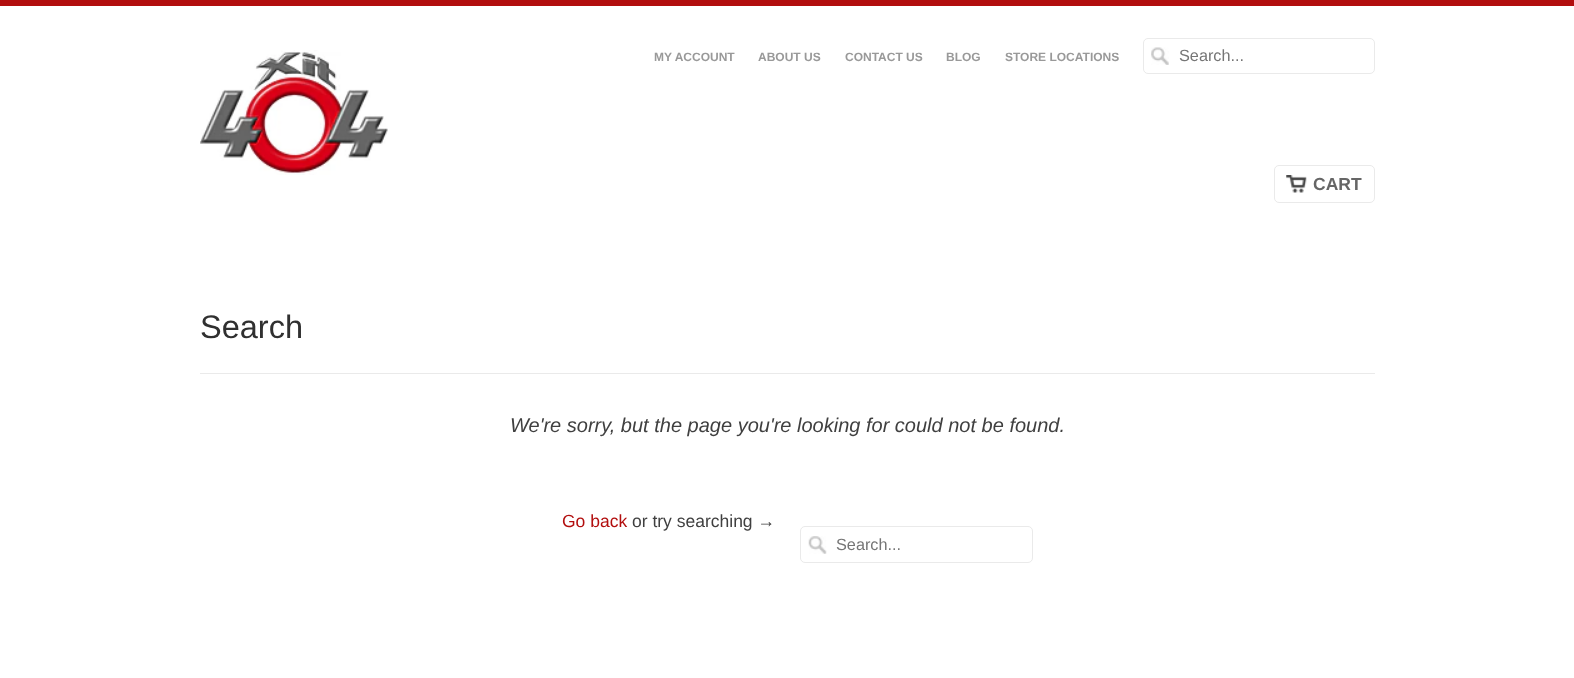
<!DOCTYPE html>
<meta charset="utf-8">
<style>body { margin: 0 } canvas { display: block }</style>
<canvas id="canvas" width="1574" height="678"></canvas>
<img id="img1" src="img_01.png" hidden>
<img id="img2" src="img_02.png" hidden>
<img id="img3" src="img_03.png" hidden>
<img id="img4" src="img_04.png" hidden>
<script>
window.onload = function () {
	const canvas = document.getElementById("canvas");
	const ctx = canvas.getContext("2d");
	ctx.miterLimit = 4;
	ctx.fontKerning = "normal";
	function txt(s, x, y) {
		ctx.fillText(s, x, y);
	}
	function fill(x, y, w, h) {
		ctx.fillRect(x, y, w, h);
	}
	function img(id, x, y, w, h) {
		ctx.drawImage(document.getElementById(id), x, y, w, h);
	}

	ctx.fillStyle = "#FFFFFF";
	fill(0, 0, 1574, 678);
	ctx.fillStyle = "#B20E0E";
	fill(0, 0, 1574, 6);
	img("img1", 200, 50, 188, 125);
	img("img2", 1151, 47, 18, 18);
	ctx.beginPath();
	ctx.roundRect(1143.5, 38.5, 231, 35, 4.5);
	ctx.strokeStyle = "#EAEAEA";
	ctx.stroke();
	img("img3", 1286, 175, 21, 18);
	ctx.beginPath();
	ctx.roundRect(1274.5, 165.5, 100, 37, 4.5);
	ctx.stroke();
	ctx.fillStyle = "#EAEAEA";
	fill(200, 373, 1175, 1);
	img("img4", 808, 536, 19, 18);
	ctx.beginPath();
	ctx.roundRect(800.5, 526.5, 232, 36, 4.5);
	ctx.stroke();
	ctx.font = "bold 12px Liberation Sans";
	ctx.fillStyle = "#999999";
	txt("MY ACCOUNT", 654, 61);
	txt("ABOUT US", 758, 61);
	txt("CONTACT US", 845, 61);
	txt("BLOG", 946, 61);
	txt("STORE LOCATIONS", 1005, 61);
	ctx.font = "16.25px Liberation Sans";
	ctx.fillStyle = "#757575";
	txt("Search...", 1179, 61);
	ctx.font = "bold 17.5px Liberation Sans";
	ctx.fillStyle = "#666666";
	txt("CART", 1313, 190);
	ctx.font = "32.5px Liberation Sans";
	ctx.fillStyle = "#303030";
	txt("Search", 200, 338);
	ctx.font = "italic 20px Liberation Sans";
	ctx.fillStyle = "#404040";
	txt("We're sorry, but the page you're looking for could not be found.", 510, 432);
	ctx.font = "17.5px Liberation Sans";
	ctx.fillStyle = "#B20E0E";
	txt("Go back", 562, 527);
	ctx.fillStyle = "#404040";
	txt("or try searching →", 632, 527);
	ctx.font = "16.25px Liberation Sans";
	ctx.fillStyle = "#757575";
	txt("Search...", 836, 550);
};
</script>
